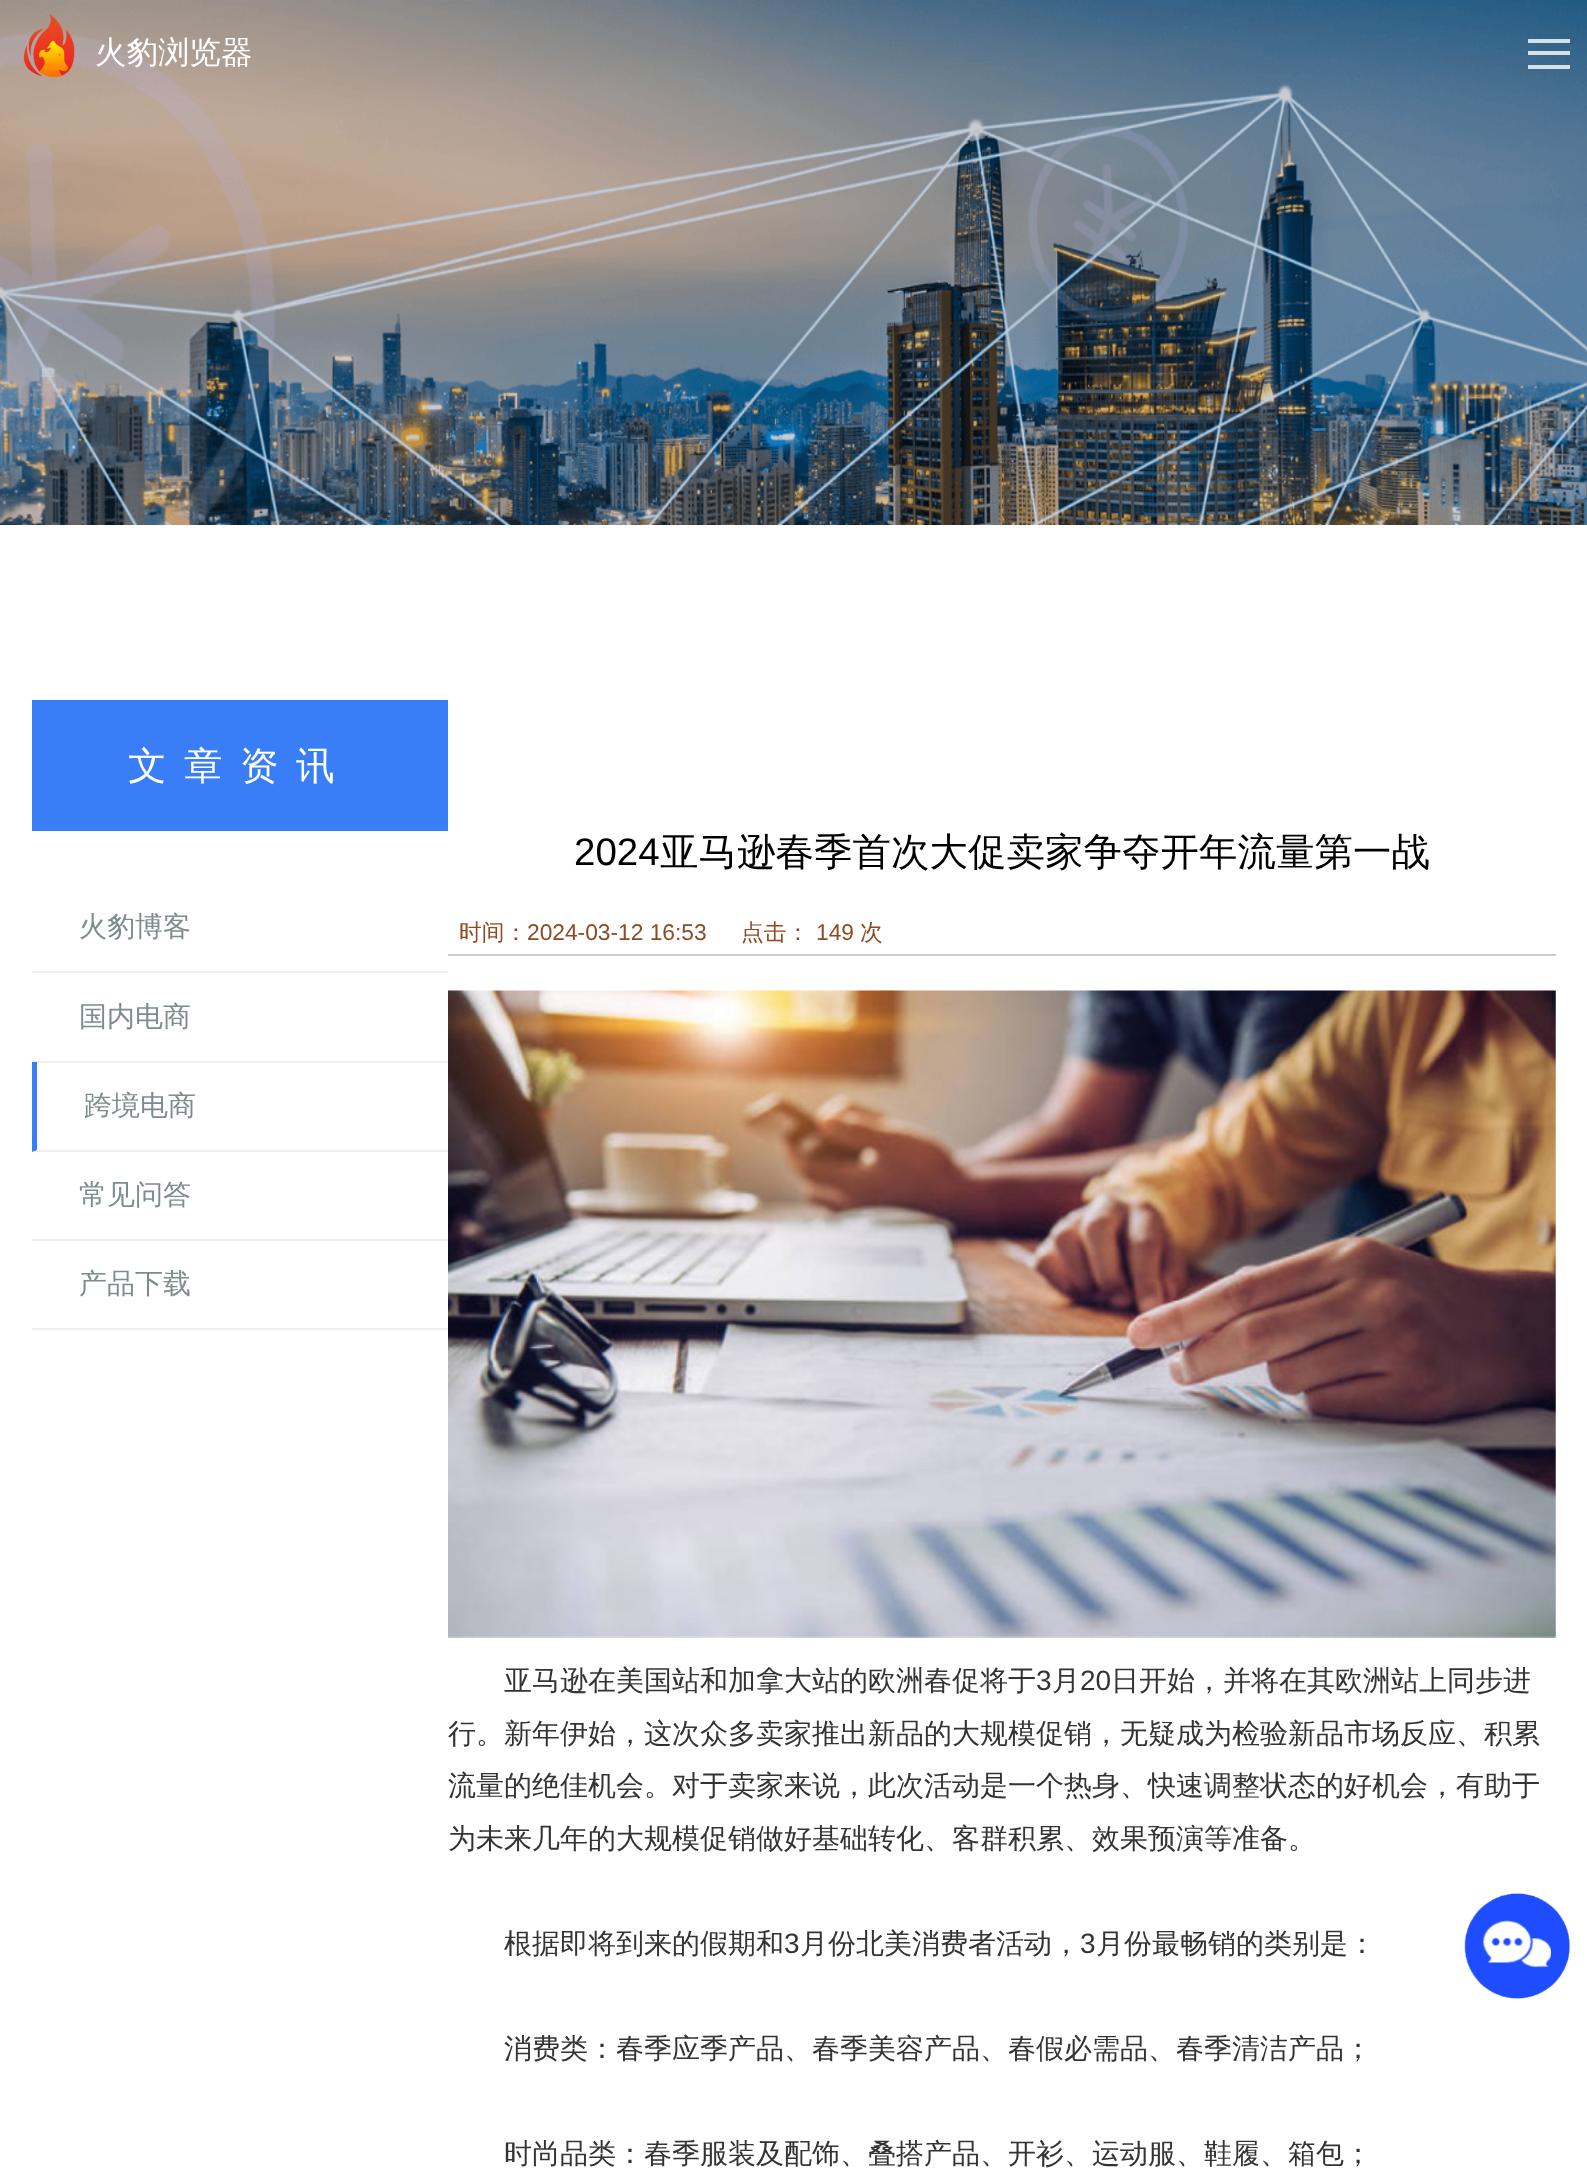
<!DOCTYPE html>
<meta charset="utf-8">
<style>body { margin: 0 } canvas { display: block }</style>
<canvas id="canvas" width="1587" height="2177"></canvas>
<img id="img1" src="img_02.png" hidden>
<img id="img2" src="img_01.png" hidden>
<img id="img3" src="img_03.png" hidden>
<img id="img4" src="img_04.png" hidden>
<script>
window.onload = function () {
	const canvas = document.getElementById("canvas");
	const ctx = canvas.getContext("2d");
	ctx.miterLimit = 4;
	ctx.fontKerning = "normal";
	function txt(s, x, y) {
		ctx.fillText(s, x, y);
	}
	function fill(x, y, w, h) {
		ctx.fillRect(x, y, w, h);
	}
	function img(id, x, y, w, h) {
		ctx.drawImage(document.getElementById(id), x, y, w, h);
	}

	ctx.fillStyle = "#FFFFFF";
	fill(0, 0, 1587, 2177);
	img("img1", 0, 0, 1587, 525);
	img("img2", 23, 14, 52, 63);
	ctx.fillStyle = "rgba(255, 255, 255, 0.8)";
	fill(1528, 39, 42, 4);
	fill(1528, 51, 42, 4);
	fill(1528, 65, 42, 4);
	ctx.fillStyle = "#397EF7";
	fill(32, 700, 416, 131);
	ctx.fillStyle = "#EFEFEF";
	fill(32, 971, 416, 2);
	fill(32, 1061, 416, 2);
	ctx.beginPath();
	ctx.moveTo(448, 1152);
	ctx.lineTo(32, 1152);
	ctx.lineTo(37, 1150);
	ctx.lineTo(448, 1150);
	ctx.closePath();
	ctx.fill();
	ctx.fillStyle = "#397EF7";
	ctx.beginPath();
	ctx.moveTo(32, 1152);
	ctx.lineTo(32, 1062);
	ctx.lineTo(37, 1062);
	ctx.lineTo(37, 1150);
	ctx.closePath();
	ctx.fill();
	ctx.fillStyle = "#EFEFEF";
	fill(32, 1239, 416, 2);
	fill(32, 1328, 416, 2);
	ctx.fillStyle = "#CCCCCC";
	fill(448, 954, 1108, 2);
	img("img3", 448, 990, 1108, 648);
	img("img4", 1464, 1893, 106, 106);
	ctx.font = "500 31.5px WenQuanYi Zen Hei";
	ctx.fillStyle = "#FFFFFF";
	txt("火豹浏览器", 95, 63);
	ctx.letterSpacing = "17.5px";
	ctx.font = "500 38.5px WenQuanYi Zen Hei";
	txt("文章资讯", 128, 779);
	ctx.letterSpacing = "0px";
	ctx.font = "500 28px WenQuanYi Zen Hei";
	ctx.fillStyle = "#7E8C8D";
	txt("火豹博客", 79, 936);
	txt("国内电商", 79, 1026);
	txt("跨境电商", 84, 1115);
	txt("常见问答", 79, 1204);
	txt("产品下载", 79, 1293);
	ctx.font = "38.5px Liberation Sans";
	ctx.fillStyle = "#000000";
	txt("2024", 574, 865);
	ctx.font = "500 38.5px WenQuanYi Zen Hei";
	txt("亚马逊春季首次大促卖家争夺开年流量第一战", 660, 865);
	ctx.font = "500 22.75px WenQuanYi Zen Hei";
	ctx.fillStyle = "#8E4A21";
	txt("时间：", 459, 940);
	ctx.font = "22.75px Liberation Sans";
	txt("2024-03-12 16:53", 527, 940);
	ctx.font = "500 22.75px WenQuanYi Zen Hei";
	txt("点击：", 741, 940);
	ctx.font = "22.75px Liberation Sans";
	txt("149", 816, 940);
	ctx.font = "500 22.75px WenQuanYi Zen Hei";
	txt("次", 860, 940);
	ctx.font = "500 28px WenQuanYi Zen Hei";
	ctx.fillStyle = "#333333";
	txt("亚马逊在美国站和加拿大站的欧洲春促将于", 504, 1690);
	ctx.font = "28px Liberation Sans";
	txt("3", 1036, 1690);
	ctx.font = "500 28px WenQuanYi Zen Hei";
	txt("月", 1052, 1690);
	ctx.font = "28px Liberation Sans";
	txt("20", 1080, 1690);
	ctx.font = "500 28px WenQuanYi Zen Hei";
	txt("日开始，并将在其欧洲站上同步进", 1111, 1690);
	txt("行。新年伊始，这次众多卖家推出新品的大规模促销，无疑成为检验新品市场反应、积累", 448, 1743);
	txt("流量的绝佳机会。对于卖家来说，此次活动是一个热身、快速调整状态的好机会，有助于", 448, 1795);
	txt("为未来几年的大规模促销做好基础转化、客群积累、效果预演等准备。", 448, 1848);
	txt("根据即将到来的假期和", 504, 1953);
	ctx.font = "28px Liberation Sans";
	txt("3", 784, 1953);
	ctx.font = "500 28px WenQuanYi Zen Hei";
	txt("月份北美消费者活动，", 800, 1953);
	ctx.font = "28px Liberation Sans";
	txt("3", 1080, 1953);
	ctx.font = "500 28px WenQuanYi Zen Hei";
	txt("月份最畅销的类别是：", 1096, 1953);
	txt("消费类：春季应季产品、春季美容产品、春假必需品、春季清洁产品；", 504, 2058);
	txt("时尚品类：春季服装及配饰、叠搭产品、开衫、运动服、鞋履、箱包；", 504, 2163);
};
</script>
